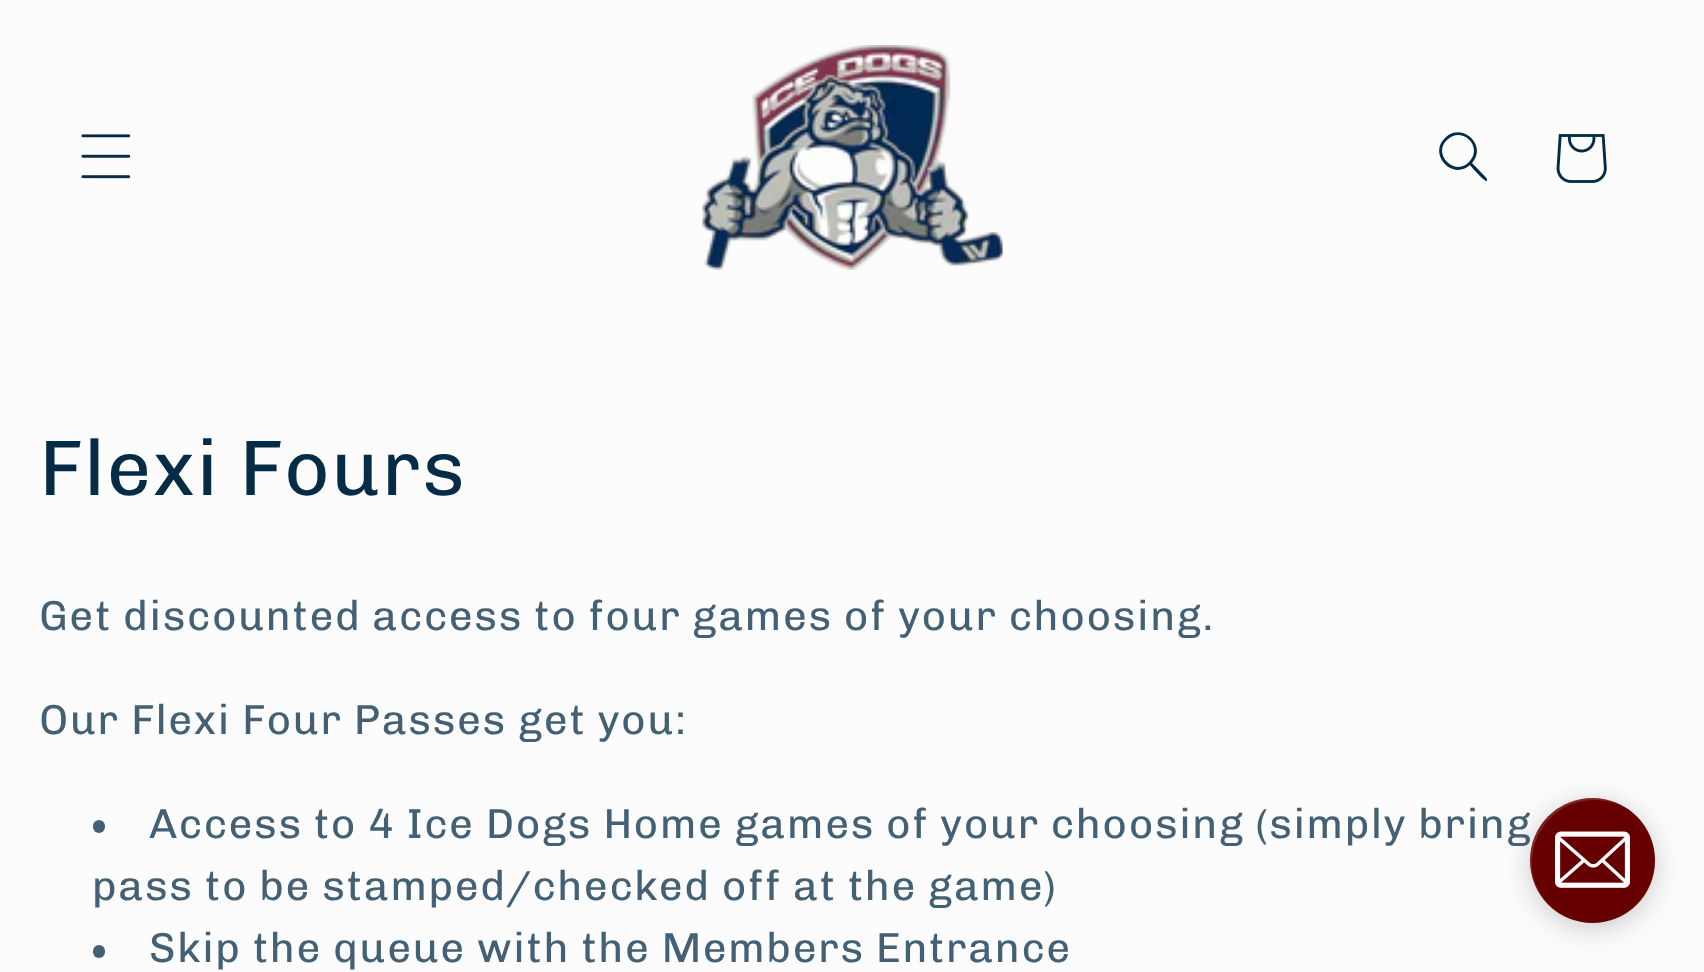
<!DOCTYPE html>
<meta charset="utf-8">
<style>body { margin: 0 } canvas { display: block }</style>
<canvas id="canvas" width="1704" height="972"></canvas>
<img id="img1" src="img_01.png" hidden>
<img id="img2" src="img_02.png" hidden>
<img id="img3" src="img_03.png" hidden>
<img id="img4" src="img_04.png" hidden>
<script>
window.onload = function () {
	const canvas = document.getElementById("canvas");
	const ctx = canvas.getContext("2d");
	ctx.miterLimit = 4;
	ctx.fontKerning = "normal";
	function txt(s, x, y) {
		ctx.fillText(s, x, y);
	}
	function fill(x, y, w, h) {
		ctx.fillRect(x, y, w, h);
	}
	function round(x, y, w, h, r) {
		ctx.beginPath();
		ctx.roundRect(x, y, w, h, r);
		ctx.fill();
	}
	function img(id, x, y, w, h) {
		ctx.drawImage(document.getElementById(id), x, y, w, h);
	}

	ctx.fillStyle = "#FCFCFC";
	fill(0, 0, 1704, 972);
	img("img1", 81, 134, 50, 45);
	img("img2", 702, 45, 301, 225);
	ctx.fillStyle = "#052C46";
	ctx.beginPath();
	ctx.moveTo(1469, 162);
	ctx.bezierCurveTo(1455, 177, 1432, 154, 1447, 140);
	ctx.bezierCurveTo(1462, 125, 1484, 147, 1469, 162);
	ctx.closePath();
	ctx.moveTo(1470, 165);
	ctx.bezierCurveTo(1452, 181, 1428, 154, 1445, 138);
	ctx.bezierCurveTo(1462, 121, 1488, 146, 1472, 163);
	ctx.bezierCurveTo(1474, 165, 1487, 178, 1487, 179);
	ctx.lineTo(1487, 181);
	ctx.bezierCurveTo(1485, 182, 1472, 168, 1470, 165);
	ctx.closePath();
	ctx.fill("evenodd");
	img("img3", 1556, 134, 51, 49);
	ctx.fillStyle = "#436074";
	round(93, 820, 12, 13, 6);
	round(93, 945, 12, 13, 6);
	ctx.fillStyle = "rgba(128, 128, 128, 0.4)";
	ctx.filter = "blur(14px)";
	ctx.beginPath();
	ctx.roundRect(1530, 803, 125, 125, 62.5);
	ctx.fill();
	ctx.filter = "none";
	ctx.fillStyle = "#660000";
	ctx.beginPath();
	ctx.arc(1592.5, 860.5, 62.5, 0, Math.PI * 2);
	ctx.fill();
	ctx.fillStyle = "rgba(255, 255, 255, 0.15)";
	ctx.beginPath();
	ctx.moveTo(1595, 800);
	ctx.bezierCurveTo(1608, 800, 1620, 804, 1629, 810);
	ctx.bezierCurveTo(1601, 789, 1561, 796, 1541, 826);
	ctx.bezierCurveTo(1523, 851, 1528, 887, 1551, 907);
	ctx.bezierCurveTo(1511, 868, 1538, 800, 1595, 800);
	ctx.closePath();
	ctx.fill();
	img("img4", 1555, 831, 75, 57);
	ctx.letterSpacing = "1.57px";
	ctx.font = "78.75px Chivo";
	ctx.fillStyle = "#052C46";
	txt("Flexi Fours", 39, 495);
	ctx.wordSpacing = "-0.1px";
	ctx.font = "42px Chivo";
	ctx.fillStyle = "#436074";
	txt("Get discounted access to four games of your choosing.", 39, 630);
	ctx.wordSpacing = "0px";
	txt("Our Flexi Four Passes get you:", 39, 734);
	ctx.wordSpacing = "-0.1px";
	txt("Access to 4 Ice Dogs Home games of your choosing (simply bring", 149, 838);
	ctx.wordSpacing = "0px";
	txt("pass to be stamped/checked off at the game)", 92, 900);
	txt("Skip the queue with the Members Entrance", 149, 962);
};
</script>
